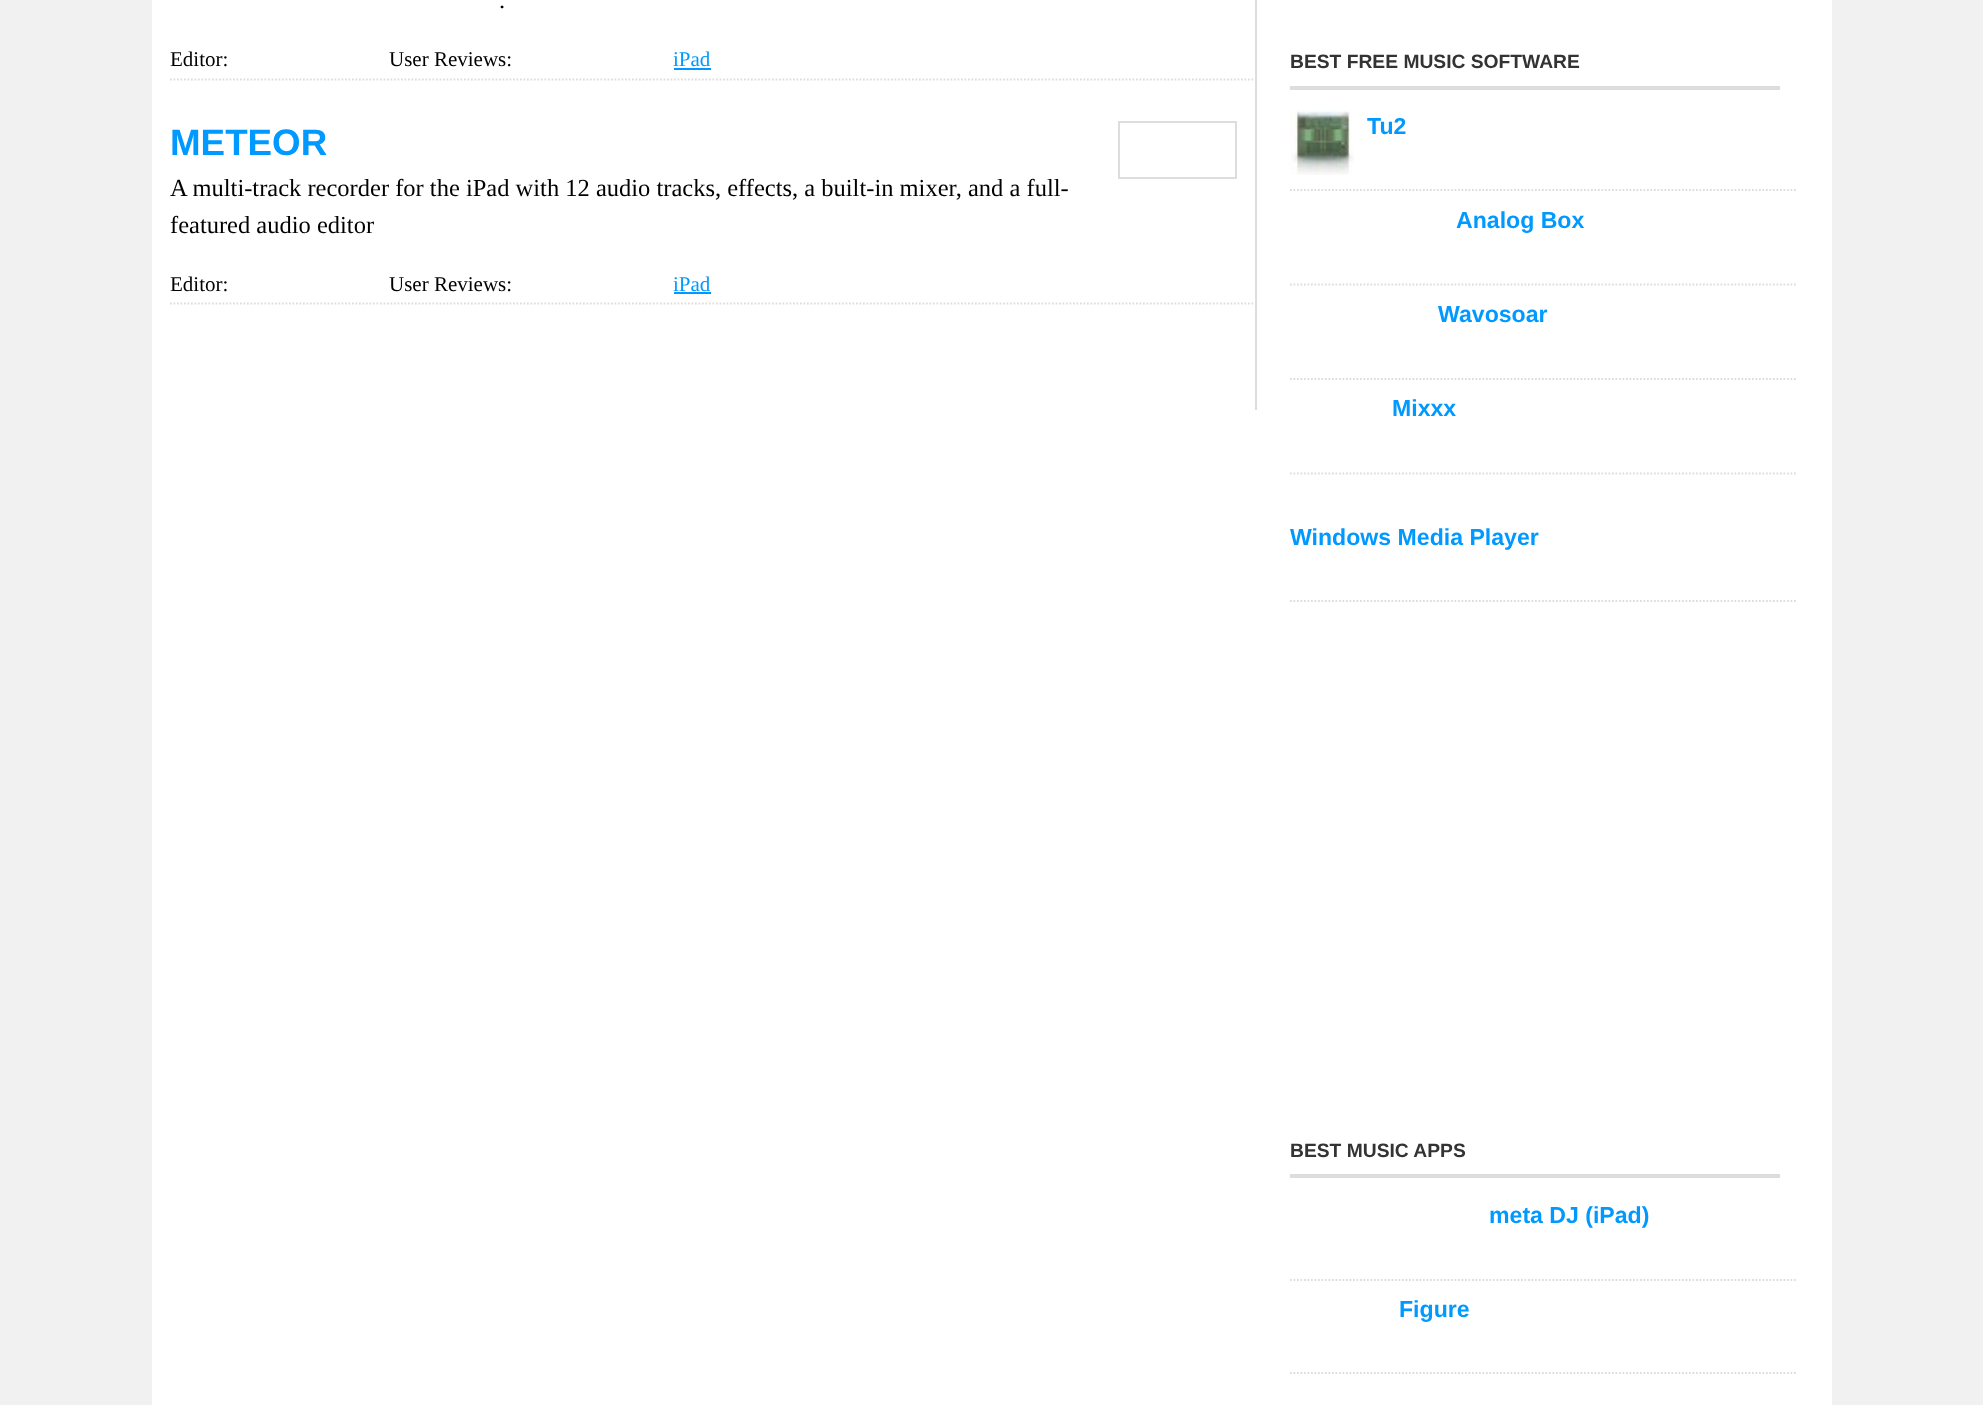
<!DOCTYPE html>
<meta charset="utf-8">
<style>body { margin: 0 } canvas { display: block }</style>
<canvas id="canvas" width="1983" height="1405"></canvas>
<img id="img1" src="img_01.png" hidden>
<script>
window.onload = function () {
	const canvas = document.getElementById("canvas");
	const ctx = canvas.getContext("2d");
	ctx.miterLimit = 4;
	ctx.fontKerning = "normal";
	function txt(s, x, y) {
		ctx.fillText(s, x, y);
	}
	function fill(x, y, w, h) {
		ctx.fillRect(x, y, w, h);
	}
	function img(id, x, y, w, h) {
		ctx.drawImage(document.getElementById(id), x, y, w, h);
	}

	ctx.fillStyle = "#F1F1F1";
	fill(0, 0, 1983, 1405);
	ctx.fillStyle = "#FFFFFF";
	fill(152, 0, 1680, 1405);
	ctx.fillStyle = "#DDDDDD";
	fill(1255, 0, 2, 410);
	ctx.beginPath();
	ctx.moveTo(170, 79.5);
	ctx.lineTo(1255, 79.5);
	ctx.strokeStyle = "#DDDDDD";
	ctx.lineWidth = 1.8;
	ctx.setLineDash([1.75, 1.75]);
	ctx.stroke();
	ctx.fillStyle = "#0099FF";
	fill(674, 68, 37, 2);
	ctx.beginPath();
	ctx.moveTo(170, 303.5);
	ctx.lineTo(1255, 303.5);
	ctx.stroke();
	ctx.lineWidth = 2;
	ctx.setLineDash([]);
	ctx.strokeRect(1119, 122, 117, 56);
	fill(674, 292, 37, 2);
	ctx.fillStyle = "#DDDDDD";
	fill(1290, 86, 490, 4);
	ctx.beginPath();
	ctx.moveTo(1290, 190);
	ctx.lineTo(1797, 190);
	ctx.lineWidth = 1.8;
	ctx.setLineDash([1.75, 1.75]);
	ctx.stroke();
	img("img1", 1290, 110, 64, 65);
	ctx.beginPath();
	ctx.moveTo(1290, 284.5);
	ctx.lineTo(1797, 284.5);
	ctx.stroke();
	ctx.beginPath();
	ctx.moveTo(1290, 379);
	ctx.lineTo(1797, 379);
	ctx.stroke();
	ctx.beginPath();
	ctx.moveTo(1290, 473.5);
	ctx.lineTo(1797, 473.5);
	ctx.stroke();
	ctx.beginPath();
	ctx.moveTo(1290, 601);
	ctx.lineTo(1797, 601);
	ctx.stroke();
	fill(1290, 1174, 490, 4);
	ctx.beginPath();
	ctx.moveTo(1290, 1280);
	ctx.lineTo(1797, 1280);
	ctx.stroke();
	ctx.beginPath();
	ctx.moveTo(1290, 1373);
	ctx.lineTo(1797, 1373);
	ctx.stroke();
	ctx.font = "24.5px Liberation Serif";
	ctx.fillStyle = "#000000";
	txt(".", 499, 8);
	ctx.font = "21px Liberation Serif";
	txt("Editor:", 170, 66);
	txt("User Reviews:", 389, 66);
	ctx.fillStyle = "#0099FF";
	txt("iPad", 673, 66);
	ctx.font = "bold 36.75px Liberation Sans";
	txt("METEOR", 170, 155);
	ctx.font = "24.5px Liberation Serif";
	ctx.fillStyle = "#000000";
	txt("A multi-track recorder for the iPad with 12 audio tracks, effects, a built-in mixer, and a full-", 170, 196);
	txt("featured audio editor", 170, 233);
	ctx.font = "21px Liberation Serif";
	txt("Editor:", 170, 291);
	txt("User Reviews:", 389, 291);
	ctx.fillStyle = "#0099FF";
	txt("iPad", 673, 291);
	ctx.font = "bold 19.25px Liberation Sans";
	ctx.fillStyle = "#333333";
	txt("BEST FREE MUSIC SOFTWARE", 1290, 68);
	ctx.font = "bold 23.1px Liberation Sans";
	ctx.fillStyle = "#0099FF";
	txt("Tu2", 1367, 134);
	txt("Analog Box", 1456, 228);
	txt("Wavosoar", 1438, 322);
	txt("Mixxx", 1392, 416);
	txt("Windows Media Player", 1290, 545);
	ctx.font = "bold 19.25px Liberation Sans";
	ctx.fillStyle = "#333333";
	txt("BEST MUSIC APPS", 1290, 1157);
	ctx.font = "bold 23.1px Liberation Sans";
	ctx.fillStyle = "#0099FF";
	txt("meta DJ (iPad)", 1489, 1223);
	txt("Figure", 1399, 1317);
};
</script>
